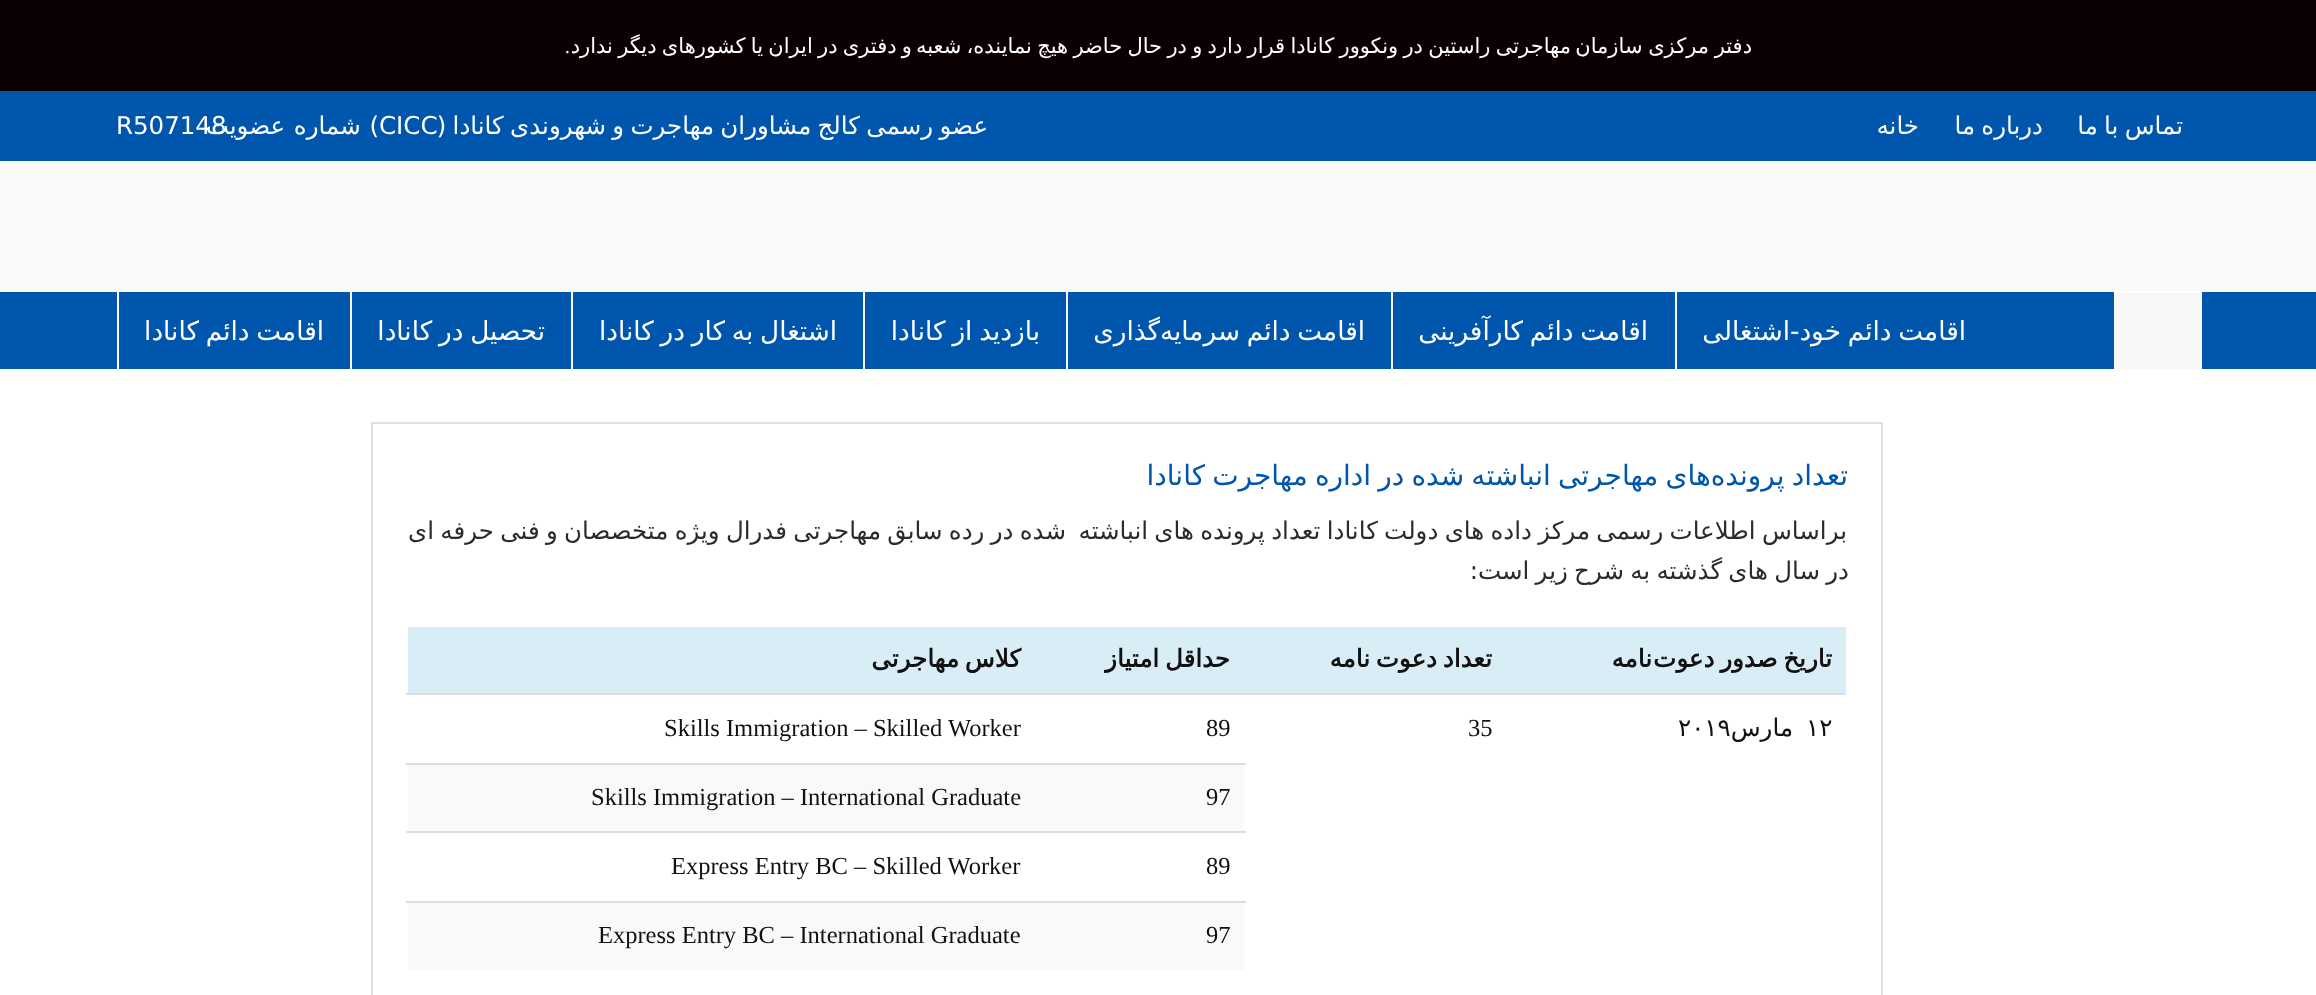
<!DOCTYPE html>
<meta charset="utf-8">
<style>body { margin: 0 } canvas { display: block }</style>
<canvas id="canvas" width="2316" height="995"></canvas>
<script>
window.onload = function () {
	const canvas = document.getElementById("canvas");
	const ctx = canvas.getContext("2d");
	ctx.miterLimit = 4;
	ctx.fontKerning = "normal";
	function txt(s, x, y) {
		ctx.fillText(s, x, y);
	}
	function fill(x, y, w, h) {
		ctx.fillRect(x, y, w, h);
	}

	ctx.fillStyle = "#FFFFFF";
	fill(0, 0, 2316, 995);
	ctx.fillStyle = "#0A0002";
	fill(0, 0, 2316, 91);
	ctx.fillStyle = "#0056AC";
	fill(0, 91, 2316, 70);
	ctx.fillStyle = "#FAFAF8";
	fill(0, 161, 2316, 130);
	ctx.fillStyle = "#0056AC";
	fill(0, 292, 2316, 77);
	ctx.fillStyle = "#F8F8F8";
	ctx.beginPath();
	ctx.rect(2115, 292, 86, 78);
	ctx.fill();
	ctx.strokeStyle = "#FFFFFF";
	ctx.lineWidth = 2;
	ctx.stroke();
	ctx.fillStyle = "#FFFFFF";
	fill(1675, 292, 2, 77);
	fill(1391, 292, 2, 77);
	fill(1066, 292, 2, 77);
	fill(863, 292, 2, 77);
	fill(571, 292, 2, 77);
	fill(350, 292, 2, 77);
	fill(117, 292, 2, 77);
	ctx.strokeStyle = "#E0E0E0";
	ctx.strokeRect(372, 423, 1510, 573);
	ctx.fillStyle = "#D9EDF7";
	fill(408, 627, 1438, 66);
	ctx.fillStyle = "#DDDDDD";
	fill(406, 693, 1440, 2);
	ctx.fillStyle = "#F9F9F9";
	fill(408, 765, 836, 66);
	ctx.fillStyle = "#DDDDDD";
	fill(406, 763, 840, 2);
	fill(406, 831, 840, 2);
	ctx.fillStyle = "#F9F9F9";
	fill(408, 903, 836, 67);
	ctx.fillStyle = "#DDDDDD";
	fill(406, 901, 840, 2);
	ctx.wordSpacing = "-1px";
	ctx.direction = "rtl";
	ctx.font = "21px DejaVu Sans";
	ctx.fillStyle = "#FFFFFF";
	txt("دفتر مرکزی سازمان", 1752, 53);
	ctx.wordSpacing = "-1.4px";
	txt("و دفتری در ایران یا کشورهای دیگر ندارد", 912, 53);
	txt("مهاجرتی راستین در ونکوور کانادا قرار دارد و در حال حاضر هیچ نماینده، شعبه", 1571, 53);
	ctx.wordSpacing = "0px";
	ctx.font = "21px Liberation Serif";
	txt(".", 570, 53);
	ctx.wordSpacing = "-1.5px";
	ctx.font = "24.5px DejaVu Sans";
	ctx.fillStyle = "#F9F9F9";
	txt("تماس با ما", 2183, 134);
	txt("درباره ما", 2043, 134);
	ctx.wordSpacing = "0px";
	txt("خانه", 1919, 134);
	ctx.wordSpacing = "-1.5px";
	ctx.fillStyle = "#FFFFFF";
	txt("عضو رسمی کالج مشاوران مهاجرت و شهروندی کانادا (", 988, 134);
	ctx.wordSpacing = "0px";
	ctx.direction = "ltr";
	txt("CICC", 379, 134);
	txt("R507148", 116, 134);
	ctx.wordSpacing = "1px";
	ctx.direction = "rtl";
	txt(") شماره عضویت", 379, 134);
	ctx.wordSpacing = "-1.5px";
	ctx.font = "26.25px DejaVu Sans";
	txt("اقامت دائم خود-اشتغالی", 1966, 340);
	txt("اقامت دائم کارآفرینی", 1648, 340);
	txt("اقامت دائم سرمایه‌گذاری", 1365, 340);
	txt("بازدید از کانادا", 1040, 340);
	txt("اشتغال به کار در کانادا", 837, 340);
	txt("تحصیل در کانادا", 545, 340);
	txt("اقامت دائم کانادا", 324, 340);
	ctx.wordSpacing = "-1.75px";
	ctx.font = "28px DejaVu Sans";
	ctx.fillStyle = "#0056AC";
	txt("تعداد پرونده‌های مهاجرتی انباشته شده در اداره مهاجرت کانادا", 1848, 485);
	ctx.wordSpacing = "-1.5px";
	ctx.font = "24.5px DejaVu Sans";
	ctx.fillStyle = "#2B2B2B";
	txt("براساس اطلاعات رسمی مرکز داده های دولت کانادا تعداد پرونده های انباشته  شده در رده سابق مهاجرتی فدرال ویژه متخصصان و فنی حرفه ای", 1847, 539);
	txt("در سال های گذشته به شرح زیر است:", 1849, 579);
	ctx.wordSpacing = "-2px";
	ctx.font = "bold 24.5px DejaVu Sans";
	ctx.fillStyle = "#111111";
	txt("تاریخ صدور دعوت", 1832, 667);
	ctx.wordSpacing = "0px";
	txt("نامه", 1652, 667);
	ctx.wordSpacing = "-2px";
	txt("تعداد دعوت نامه", 1492, 667);
	txt("حداقل امتیاز", 1230, 667);
	txt("کلاس مهاجرتی", 1021, 667);
	ctx.wordSpacing = "0px";
	ctx.direction = "ltr";
	ctx.font = "24.5px DejaVu Sans";
	txt("۱۲", 1806, 736);
	ctx.direction = "rtl";
	txt("مارس", 1793, 736);
	ctx.direction = "ltr";
	txt("۲۰۱۹", 1678, 736);
	ctx.font = "24.5px Liberation Serif";
	txt("35", 1468, 736);
	txt("89", 1206, 736);
	txt("Skills Immigration – Skilled Worker", 664, 736);
	txt("97", 1206, 805);
	txt("Skills Immigration – International Graduate", 591, 805);
	txt("89", 1206, 874);
	txt("Express Entry BC – Skilled Worker", 671, 874);
	txt("97", 1206, 943);
	txt("Express Entry BC – International Graduate", 598, 943);
};
</script>
